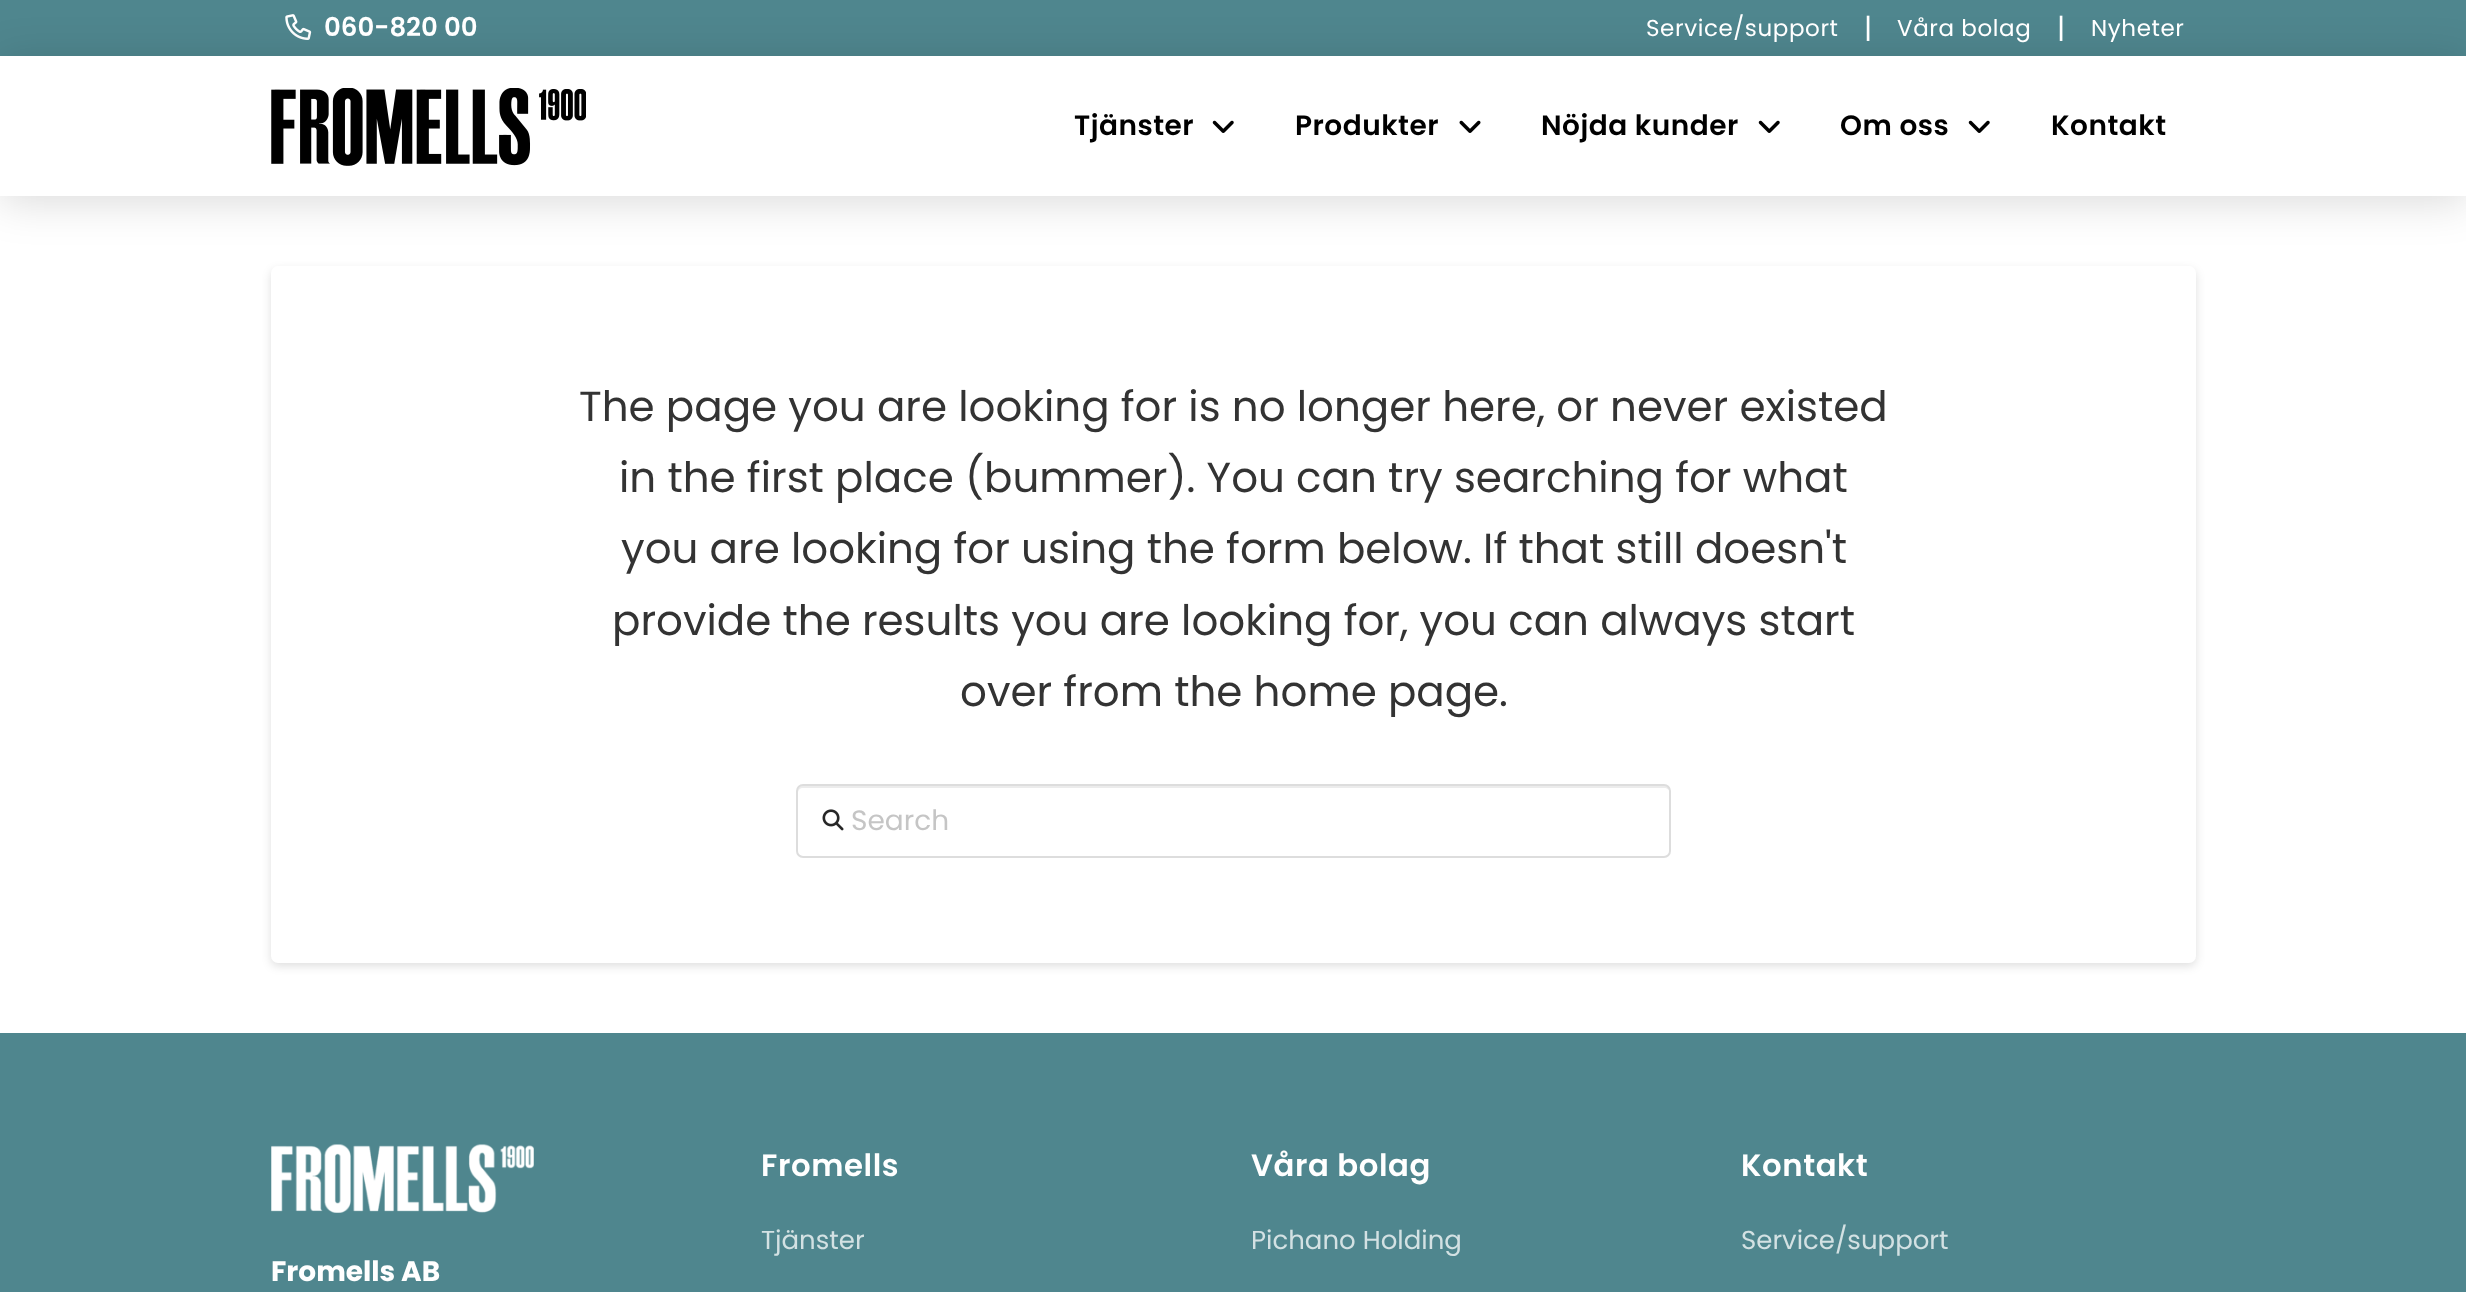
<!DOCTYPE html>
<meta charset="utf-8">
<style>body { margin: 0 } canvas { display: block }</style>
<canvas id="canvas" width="2466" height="1292"></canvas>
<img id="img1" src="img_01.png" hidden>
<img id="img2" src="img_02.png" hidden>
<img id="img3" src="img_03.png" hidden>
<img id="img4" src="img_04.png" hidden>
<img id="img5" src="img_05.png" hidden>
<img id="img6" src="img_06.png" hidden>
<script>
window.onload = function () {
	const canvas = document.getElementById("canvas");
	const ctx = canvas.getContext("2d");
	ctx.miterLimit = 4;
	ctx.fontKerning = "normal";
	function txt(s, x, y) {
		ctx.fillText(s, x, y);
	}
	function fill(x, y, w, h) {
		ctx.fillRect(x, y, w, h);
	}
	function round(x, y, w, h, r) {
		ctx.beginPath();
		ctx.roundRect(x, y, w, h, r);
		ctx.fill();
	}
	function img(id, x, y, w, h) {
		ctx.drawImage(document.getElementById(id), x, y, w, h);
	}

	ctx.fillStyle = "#FFFFFF";
	fill(0, 0, 2466, 1292);
	ctx.fillStyle = "#4F868E";
	fill(0, 0, 2466, 56);
	img("img1", 285, 14, 27, 26);
	ctx.fillStyle = "rgba(0, 0, 0, 0.13)";
	ctx.filter = "blur(5px)";
	ctx.beginPath();
	ctx.roundRect(271, 270, 1925, 696, 7);
	ctx.fill();
	ctx.filter = "none";
	ctx.fillStyle = "#FFFFFF";
	round(271, 266, 1925, 697, 7);
	ctx.save();
	ctx.beginPath();
	ctx.moveTo(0, 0);
	ctx.lineTo(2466, 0);
	ctx.lineTo(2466, 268);
	ctx.lineTo(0, 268);
	ctx.closePath();
	ctx.moveTo(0, 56);
	ctx.lineTo(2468, 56);
	ctx.lineTo(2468, 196);
	ctx.lineTo(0, 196);
	ctx.closePath();
	ctx.clip("evenodd");
	ctx.fillStyle = "rgba(0, 0, 0, 0.15)";
	ctx.filter = "blur(22px)";
	ctx.beginPath();
	ctx.rect(0, 61, 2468, 140);
	ctx.fill();
	ctx.filter = "none";
	ctx.restore();
	img("img2", 271, 88, 315, 78);
	img("img3", 1212, 120, 22, 13);
	img("img4", 1459, 120, 22, 13);
	img("img3", 1758, 120, 22, 13);
	img("img3", 1968, 120, 22, 13);
	ctx.fillStyle = "#ECECEC";
	ctx.beginPath();
	ctx.moveTo(803, 788);
	ctx.lineTo(1664, 788);
	ctx.bezierCurveTo(1667, 788, 1670, 790, 1670, 793);
	ctx.lineTo(1670, 791);
	ctx.bezierCurveTo(1670, 788, 1668, 786, 1665, 786);
	ctx.lineTo(803, 786);
	ctx.bezierCurveTo(800, 786, 798, 788, 798, 791);
	ctx.lineTo(798, 793);
	ctx.bezierCurveTo(798, 790, 800, 788, 803, 788);
	ctx.closePath();
	ctx.fill();
	ctx.beginPath();
	ctx.roundRect(797, 785, 873, 72, 6);
	ctx.strokeStyle = "#DDDDDD";
	ctx.lineWidth = 2;
	ctx.stroke();
	img("img5", 822, 809, 22, 22);
	ctx.fillStyle = "#4F868E";
	fill(0, 1033, 2466, 259);
	img("img6", 271, 1144, 263, 69);
	ctx.font = "600 26px Poppins";
	ctx.fillStyle = "#FFFFFF";
	txt("060-820 00", 324, 36);
	ctx.letterSpacing = "0.6px";
	ctx.font = "23px Poppins";
	txt("Service/support", 1646, 36);
	ctx.letterSpacing = "0px";
	ctx.font = "28px Poppins";
	txt("|", 1864, 38);
	ctx.letterSpacing = "0.6px";
	ctx.font = "23px Poppins";
	txt("Våra bolag", 1897, 36);
	ctx.letterSpacing = "0px";
	ctx.font = "28px Poppins";
	txt("|", 2057, 38);
	ctx.letterSpacing = "0.6px";
	ctx.font = "23px Poppins";
	txt("Nyheter", 2091, 36);
	ctx.letterSpacing = "0.5px";
	ctx.font = "600 28px Poppins";
	ctx.fillStyle = "#000000";
	txt("Tjänster", 1074, 135);
	txt("Produkter", 1295, 135);
	txt("Nöjda kunder", 1541, 135);
	txt("Om oss", 1840, 135);
	txt("Kontakt", 2051, 135);
	ctx.letterSpacing = "0px";
	ctx.font = "42px Poppins";
	ctx.fillStyle = "#333333";
	txt("The page you are looking for is no longer here, or never existed", 579, 421);
	txt("in the first place (bummer). You can try searching for what", 619, 492);
	txt("you are looking for using the form below. If that still doesn't", 621, 563);
	txt("provide the results you are looking for, you can always start", 612, 635);
	txt("over from the home page.", 960, 706);
	ctx.font = "28px Poppins";
	ctx.fillStyle = "#C5C5C5";
	txt("Search", 851, 830);
	ctx.letterSpacing = "0.6px";
	ctx.font = "600 30.75px Poppins";
	ctx.fillStyle = "#FFFFFF";
	txt("Fromells", 761, 1176);
	ctx.letterSpacing = "0px";
	ctx.font = "26px Poppins";
	ctx.fillStyle = "#D3E1E3";
	txt("Tjänster", 761, 1249);
	ctx.letterSpacing = "0.6px";
	ctx.font = "600 30.75px Poppins";
	ctx.fillStyle = "#FFFFFF";
	txt("Våra bolag", 1251, 1176);
	ctx.letterSpacing = "0px";
	ctx.font = "26px Poppins";
	ctx.fillStyle = "#D3E1E3";
	txt("Pichano Holding", 1251, 1249);
	ctx.letterSpacing = "0.6px";
	ctx.font = "600 30.75px Poppins";
	ctx.fillStyle = "#FFFFFF";
	txt("Kontakt", 1741, 1176);
	ctx.letterSpacing = "0px";
	ctx.font = "26px Poppins";
	ctx.fillStyle = "#D3E1E3";
	txt("Service/support", 1741, 1249);
	ctx.font = "bold 28px Poppins";
	ctx.fillStyle = "#FFFFFF";
	txt("Fromells AB", 271, 1281);
};
</script>
